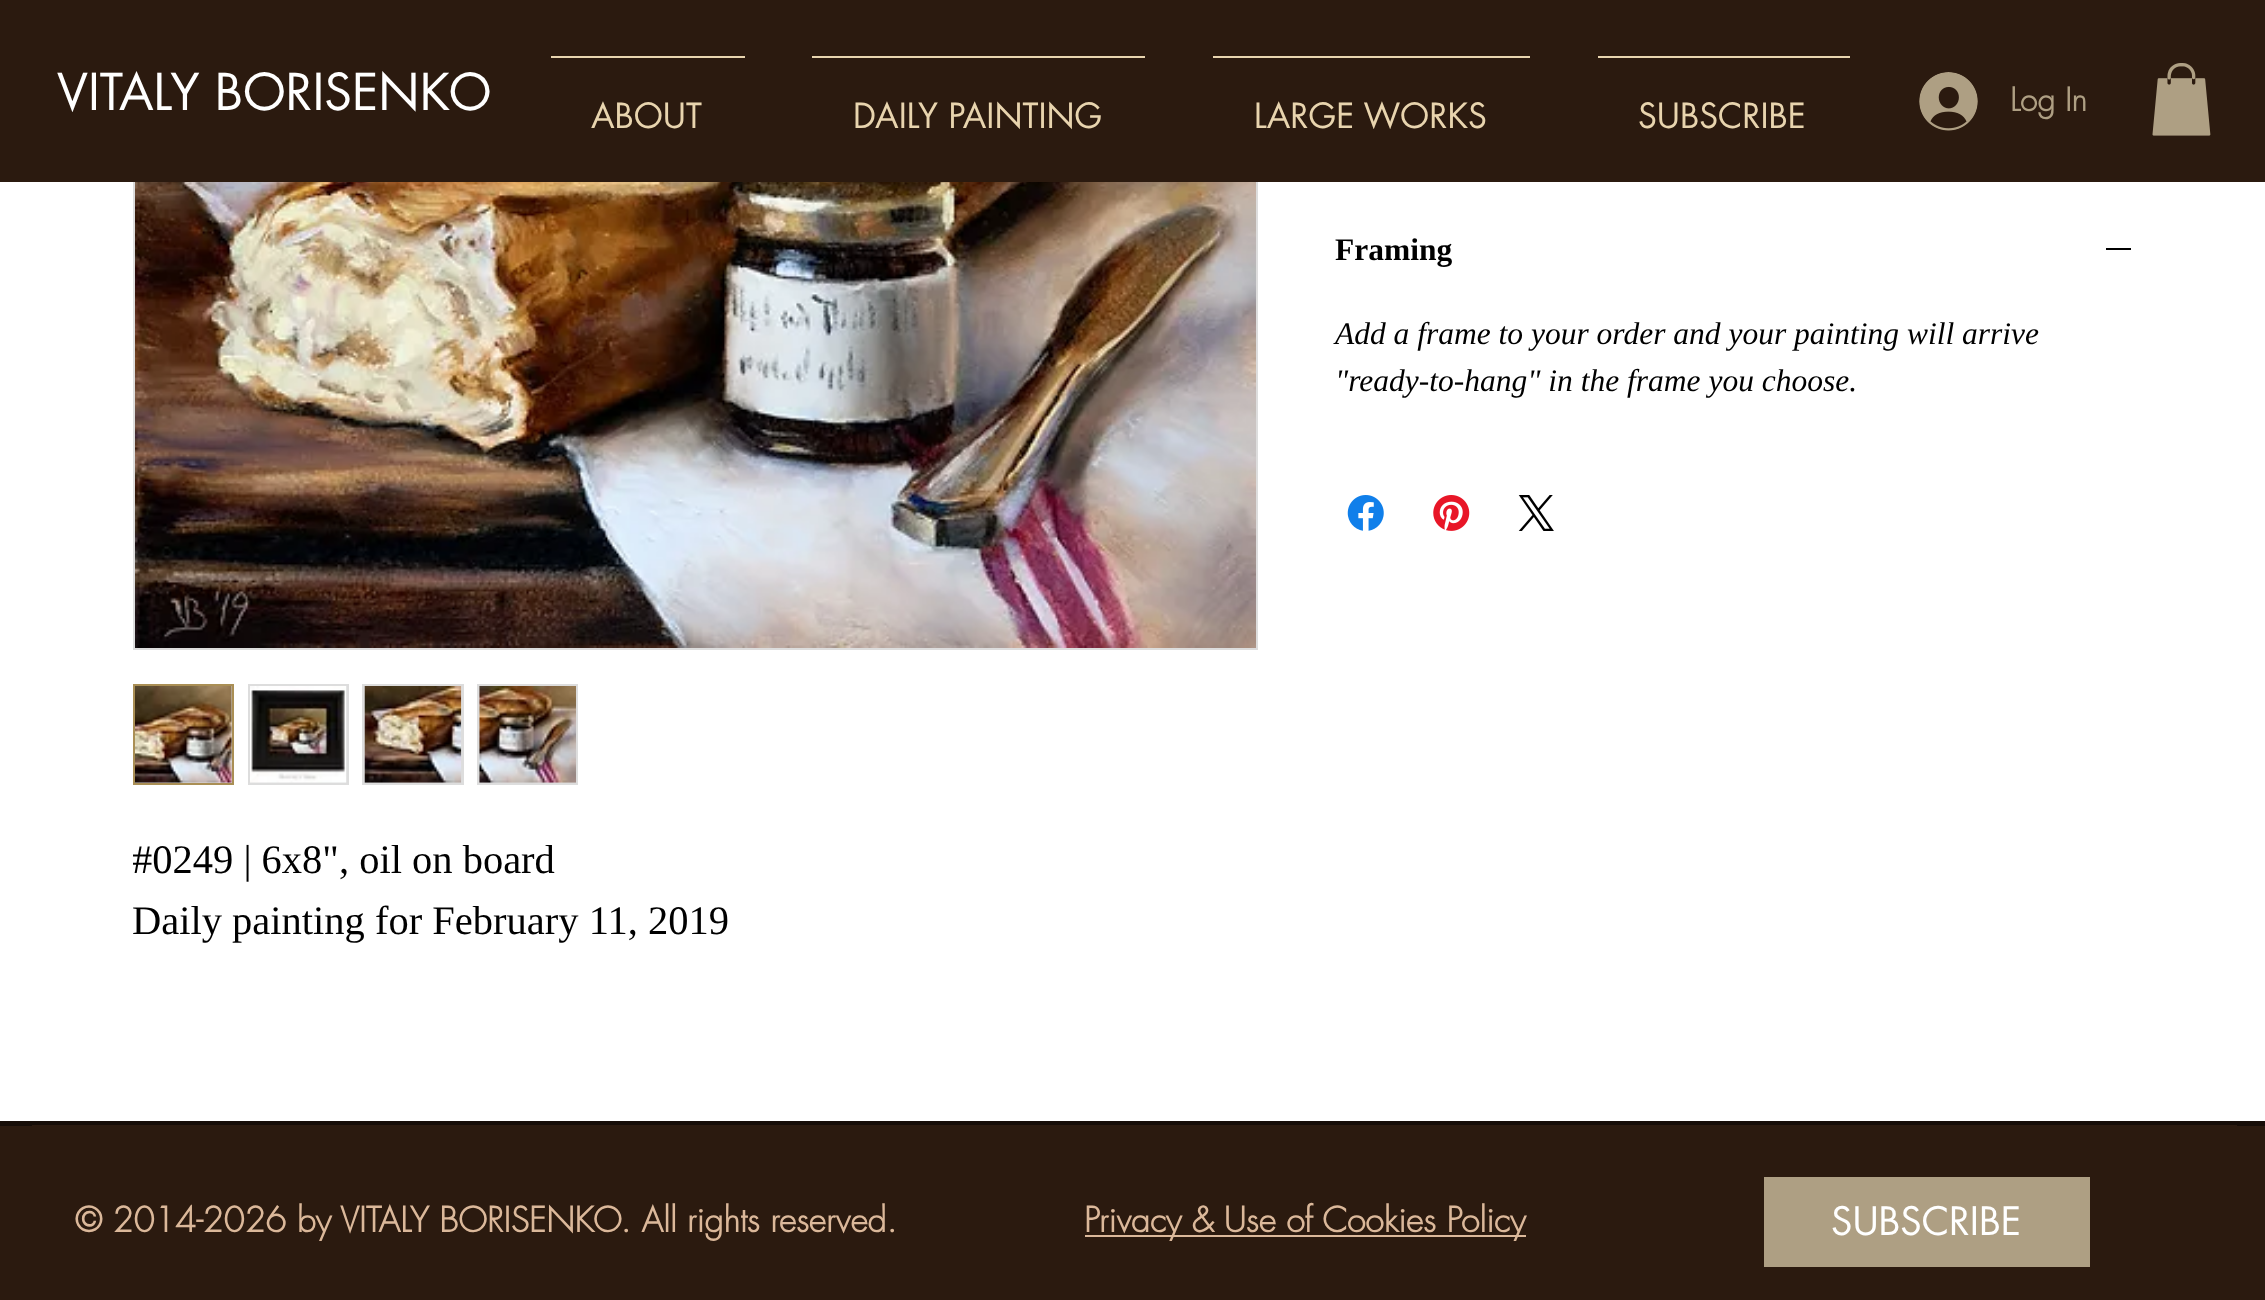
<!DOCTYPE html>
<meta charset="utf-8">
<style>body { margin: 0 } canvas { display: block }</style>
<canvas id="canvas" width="2265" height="1300"></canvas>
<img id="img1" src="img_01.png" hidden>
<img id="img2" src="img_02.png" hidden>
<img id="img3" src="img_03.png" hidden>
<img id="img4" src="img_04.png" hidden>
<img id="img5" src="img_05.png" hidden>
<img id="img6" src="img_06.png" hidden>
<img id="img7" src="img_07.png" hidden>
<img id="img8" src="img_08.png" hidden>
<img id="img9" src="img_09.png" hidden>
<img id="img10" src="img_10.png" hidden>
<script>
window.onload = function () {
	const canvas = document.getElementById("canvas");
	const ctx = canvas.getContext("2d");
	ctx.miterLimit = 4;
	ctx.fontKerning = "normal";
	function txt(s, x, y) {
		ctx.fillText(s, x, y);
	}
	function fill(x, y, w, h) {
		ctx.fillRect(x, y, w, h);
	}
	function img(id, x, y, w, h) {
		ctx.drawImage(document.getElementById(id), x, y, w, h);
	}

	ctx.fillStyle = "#FFFFFF";
	fill(0, 0, 2265, 1300);
	ctx.strokeStyle = "#DDDDDD";
	ctx.lineWidth = 2;
	ctx.strokeRect(134, -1, 1123, 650);
	ctx.fillStyle = "#2B1A0F";
	fill(0, 0, 2265, 182);
	ctx.fillStyle = "#E8D4AE";
	fill(551, 56, 194, 2);
	fill(812, 56, 333, 2);
	fill(1213, 56, 317, 2);
	fill(1598, 56, 252, 2);
	img("img1", 1919, 72, 59, 59);
	img("img2", 2152, 63, 59, 73);
	ctx.fillStyle = "#000000";
	fill(2106, 248, 25, 2);
	img("img3", 1347, 495, 37, 36);
	img("img4", 1433, 495, 37, 36);
	img("img5", 1518, 495, 36, 36);
	img("img6", 135, 182, 1121, 466);
	ctx.fillStyle = "#DDDDDD";
	ctx.beginPath();
	ctx.rect(134, 685, 99, 99);
	ctx.fill();
	ctx.strokeStyle = "#AA8F55";
	ctx.stroke();
	img("img7", 135, 686, 97, 97);
	fill(248, 684, 101, 101);
	img("img8", 250, 686, 97, 97);
	fill(362, 684, 102, 101);
	img("img9", 364, 686, 98, 97);
	fill(477, 684, 101, 101);
	img("img10", 479, 686, 97, 97);
	ctx.fillStyle = "#2B1A0F";
	fill(0, 1126, 2265, 174);
	ctx.fillStyle = "#160D08";
	fill(0, 1121, 2265, 5);
	ctx.fillStyle = "#2B1A0F";
	fill(32, 1125, 2205, 1);
	ctx.fillStyle = "#DBB89A";
	fill(1085, 1235, 441, 2);
	ctx.fillStyle = "#AE9F83";
	fill(1764, 1177, 326, 90);
	ctx.font = "49.5px futura";
	ctx.fillStyle = "#FFFFFF";
	txt("VITALY BORISENKO", 57, 110);
	ctx.font = "33.75px futura";
	ctx.fillStyle = "#E8D4AE";
	txt("ABOUT", 591, 128);
	txt("DAILY PAINTING", 853, 128);
	txt("LARGE WORKS", 1254, 128);
	txt("SUBSCRIBE", 1638, 128);
	ctx.font = "bold 31.5px futura";
	ctx.fillStyle = "#AE9F83";
	txt("Log In", 2010, 111);
	ctx.font = "bold 31.5px Liberation Serif";
	ctx.fillStyle = "#000000";
	txt("Framing", 1335, 260);
	ctx.font = "italic 31.5px Liberation Serif";
	txt("Add a frame to your order and your painting will arrive", 1335, 344);
	txt("\"ready-to-hang\" in the frame you choose.", 1335, 391);
	ctx.save();
	ctx.beginPath();
	ctx.rect(133, 830, 596, 122);
	ctx.clip();
	ctx.font = "40.5px Liberation Serif";
	txt("#0249 | 6x8\", oil on board", 132, 873);
	txt("Daily painting for February 11, 2019", 132, 934);
	ctx.restore();
	ctx.font = "bold 33.75px futura";
	ctx.fillStyle = "#DBB89A";
	txt("© 2014-2026 by VITALY BORISENKO. All rights reserved.", 75, 1232);
	txt("Privacy & Use of Cookies Policy", 1084, 1232);
	ctx.font = "38.25px futura";
	ctx.fillStyle = "#FFFFFF";
	txt("SUBSCRIBE", 1831, 1235);
};
</script>
